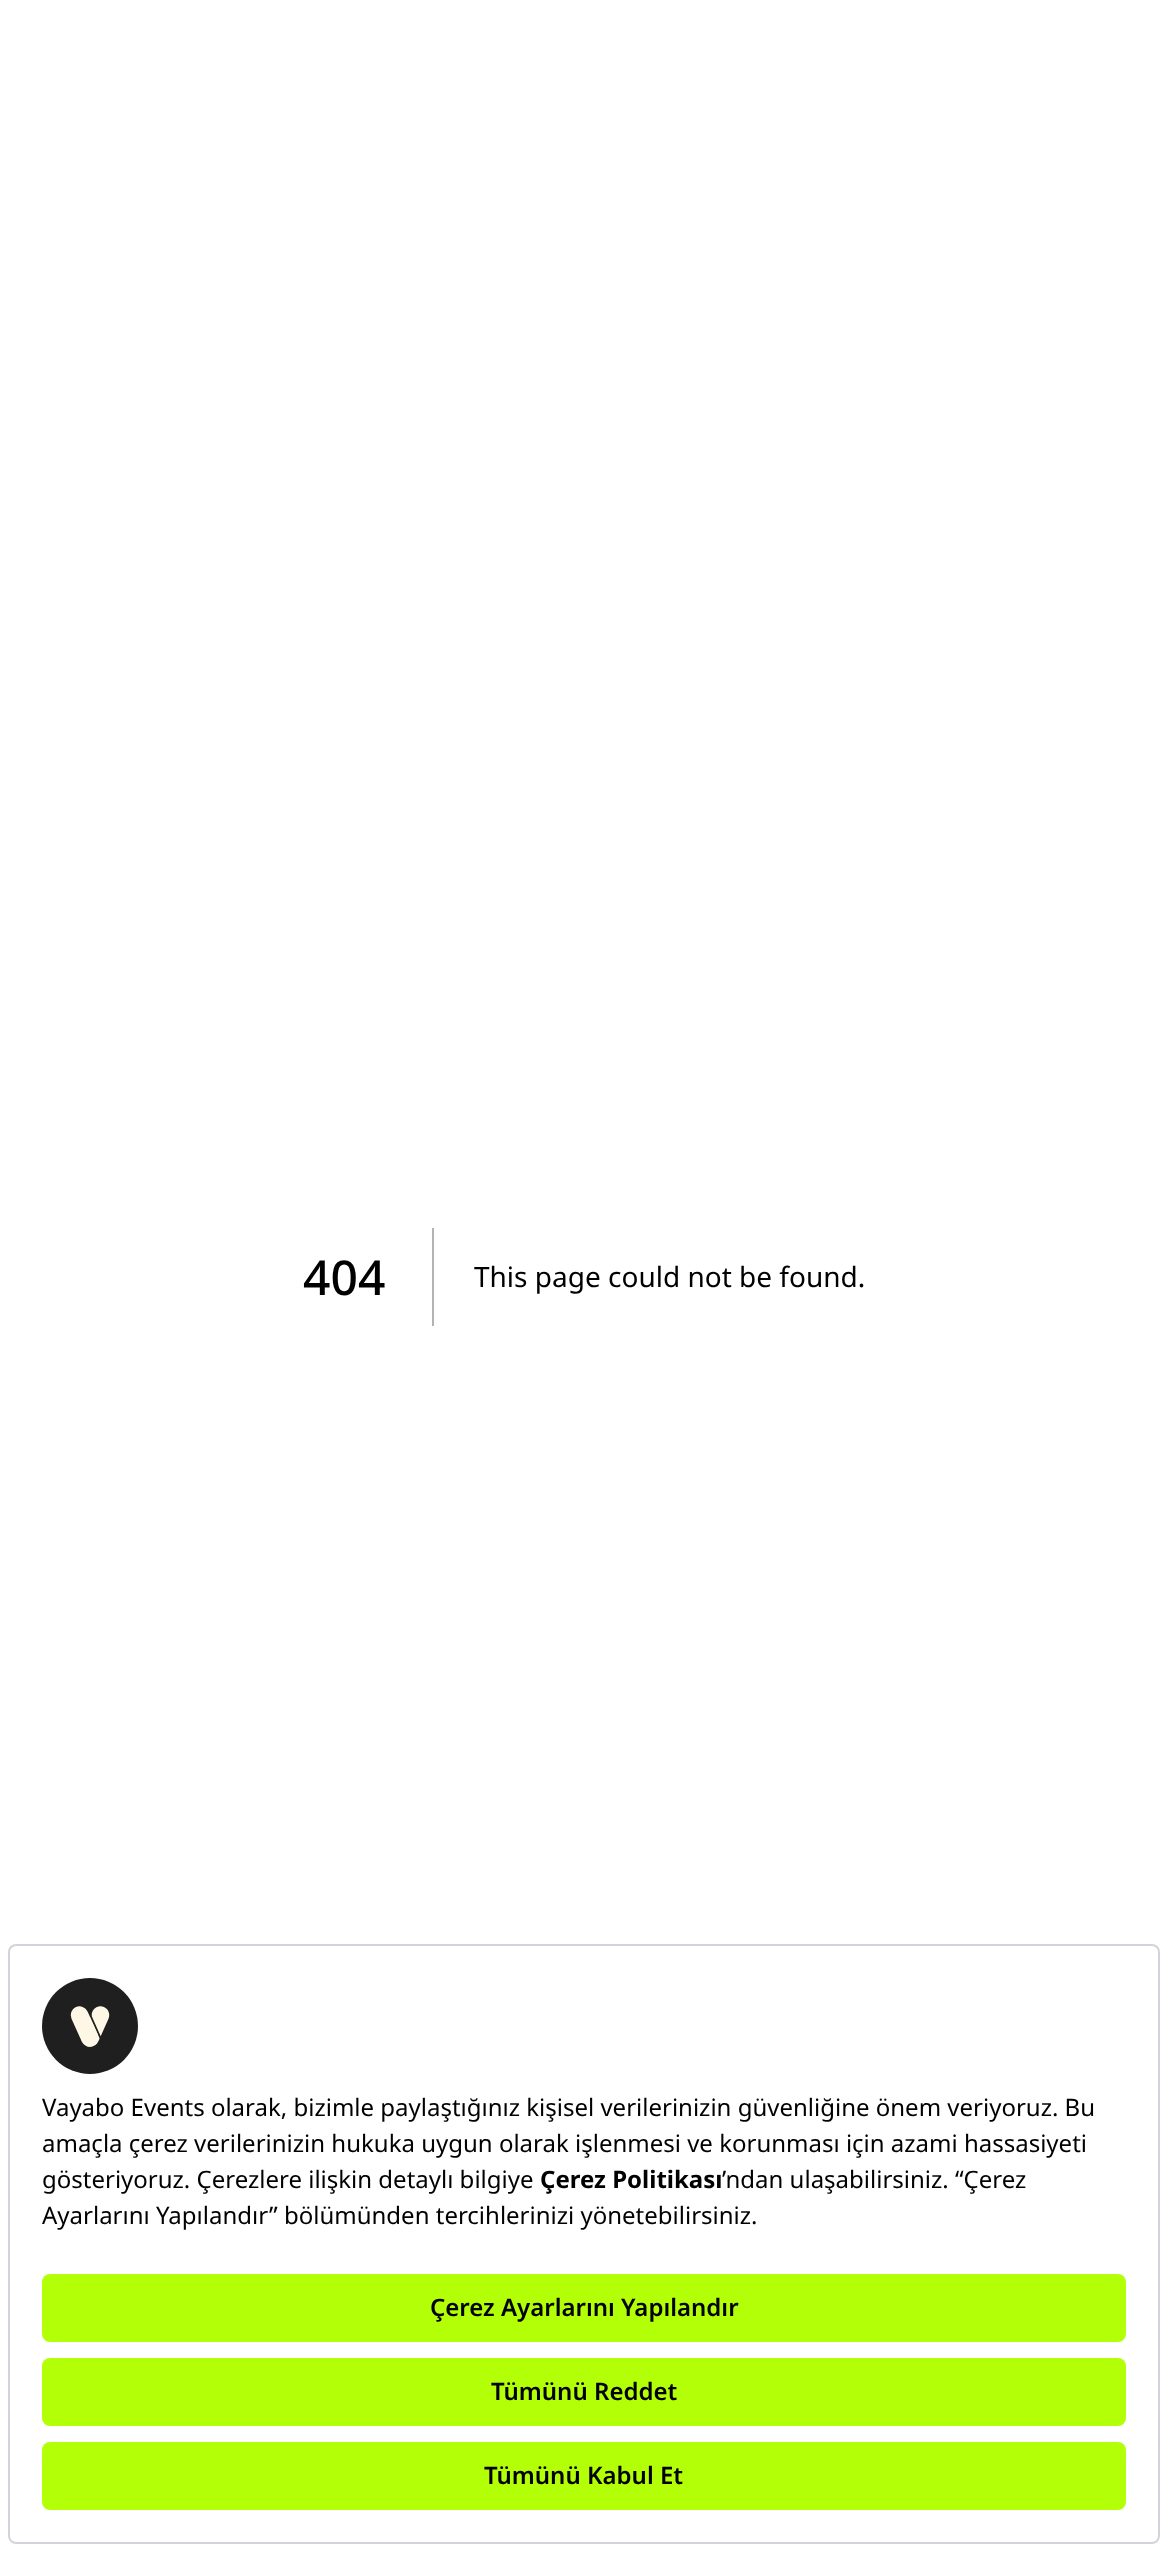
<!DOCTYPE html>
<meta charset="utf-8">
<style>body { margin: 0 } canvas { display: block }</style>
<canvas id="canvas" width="1168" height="2551"></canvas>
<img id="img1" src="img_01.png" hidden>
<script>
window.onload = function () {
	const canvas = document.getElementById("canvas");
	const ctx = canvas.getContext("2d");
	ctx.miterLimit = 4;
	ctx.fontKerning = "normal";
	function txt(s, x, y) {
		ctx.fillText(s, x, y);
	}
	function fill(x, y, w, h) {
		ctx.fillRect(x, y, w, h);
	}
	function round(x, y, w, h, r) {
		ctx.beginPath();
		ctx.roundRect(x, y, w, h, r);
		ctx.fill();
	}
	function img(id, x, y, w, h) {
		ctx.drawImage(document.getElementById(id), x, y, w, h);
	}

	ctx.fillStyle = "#FFFFFF";
	fill(0, 0, 1168, 2551);
	ctx.fillStyle = "#B3B3B3";
	fill(432, 1228, 2, 98);
	ctx.beginPath();
	ctx.roundRect(9, 1945, 1150, 598, 7);
	ctx.strokeStyle = "#D1D5DB";
	ctx.lineWidth = 2;
	ctx.stroke();
	img("img1", 42, 1978, 96, 96);
	ctx.fillStyle = "#B2FF07";
	round(42, 2274, 1084, 68, 8);
	round(42, 2358, 1084, 68, 8);
	round(42, 2442, 1084, 68, 8);
	ctx.font = "500 48px Noto Sans";
	ctx.fillStyle = "#000000";
	txt("404", 303, 1295);
	ctx.font = "28px Noto Sans";
	txt("This page could not be found.", 474, 1287);
	ctx.font = "24px Noto Sans";
	txt("Vayabo Events olarak, bizimle paylaştığınız kişisel verilerinizin güvenliğine önem veriyoruz. Bu", 42, 2116);
	txt("amaçla çerez verilerinizin hukuka uygun olarak işlenmesi ve korunması için azami hassasiyeti", 42, 2152);
	txt("gösteriyoruz. Çerezlere ilişkin detaylı bilgiye", 42, 2188);
	ctx.font = "bold 24px Noto Sans";
	txt("Çerez Politikası", 540, 2188);
	ctx.font = "24px Noto Sans";
	txt("’ndan ulaşabilirsiniz. “Çerez", 722, 2188);
	txt("Ayarlarını Yapılandır” bölümünden tercihlerinizi yönetebilirsiniz.", 42, 2224);
	ctx.font = "600 24px Noto Sans";
	txt("Çerez Ayarlarını Yapılandır", 430, 2316);
	txt("Tümünü Reddet", 491, 2400);
	txt("Tümünü Kabul Et", 484, 2484);
};
</script>
